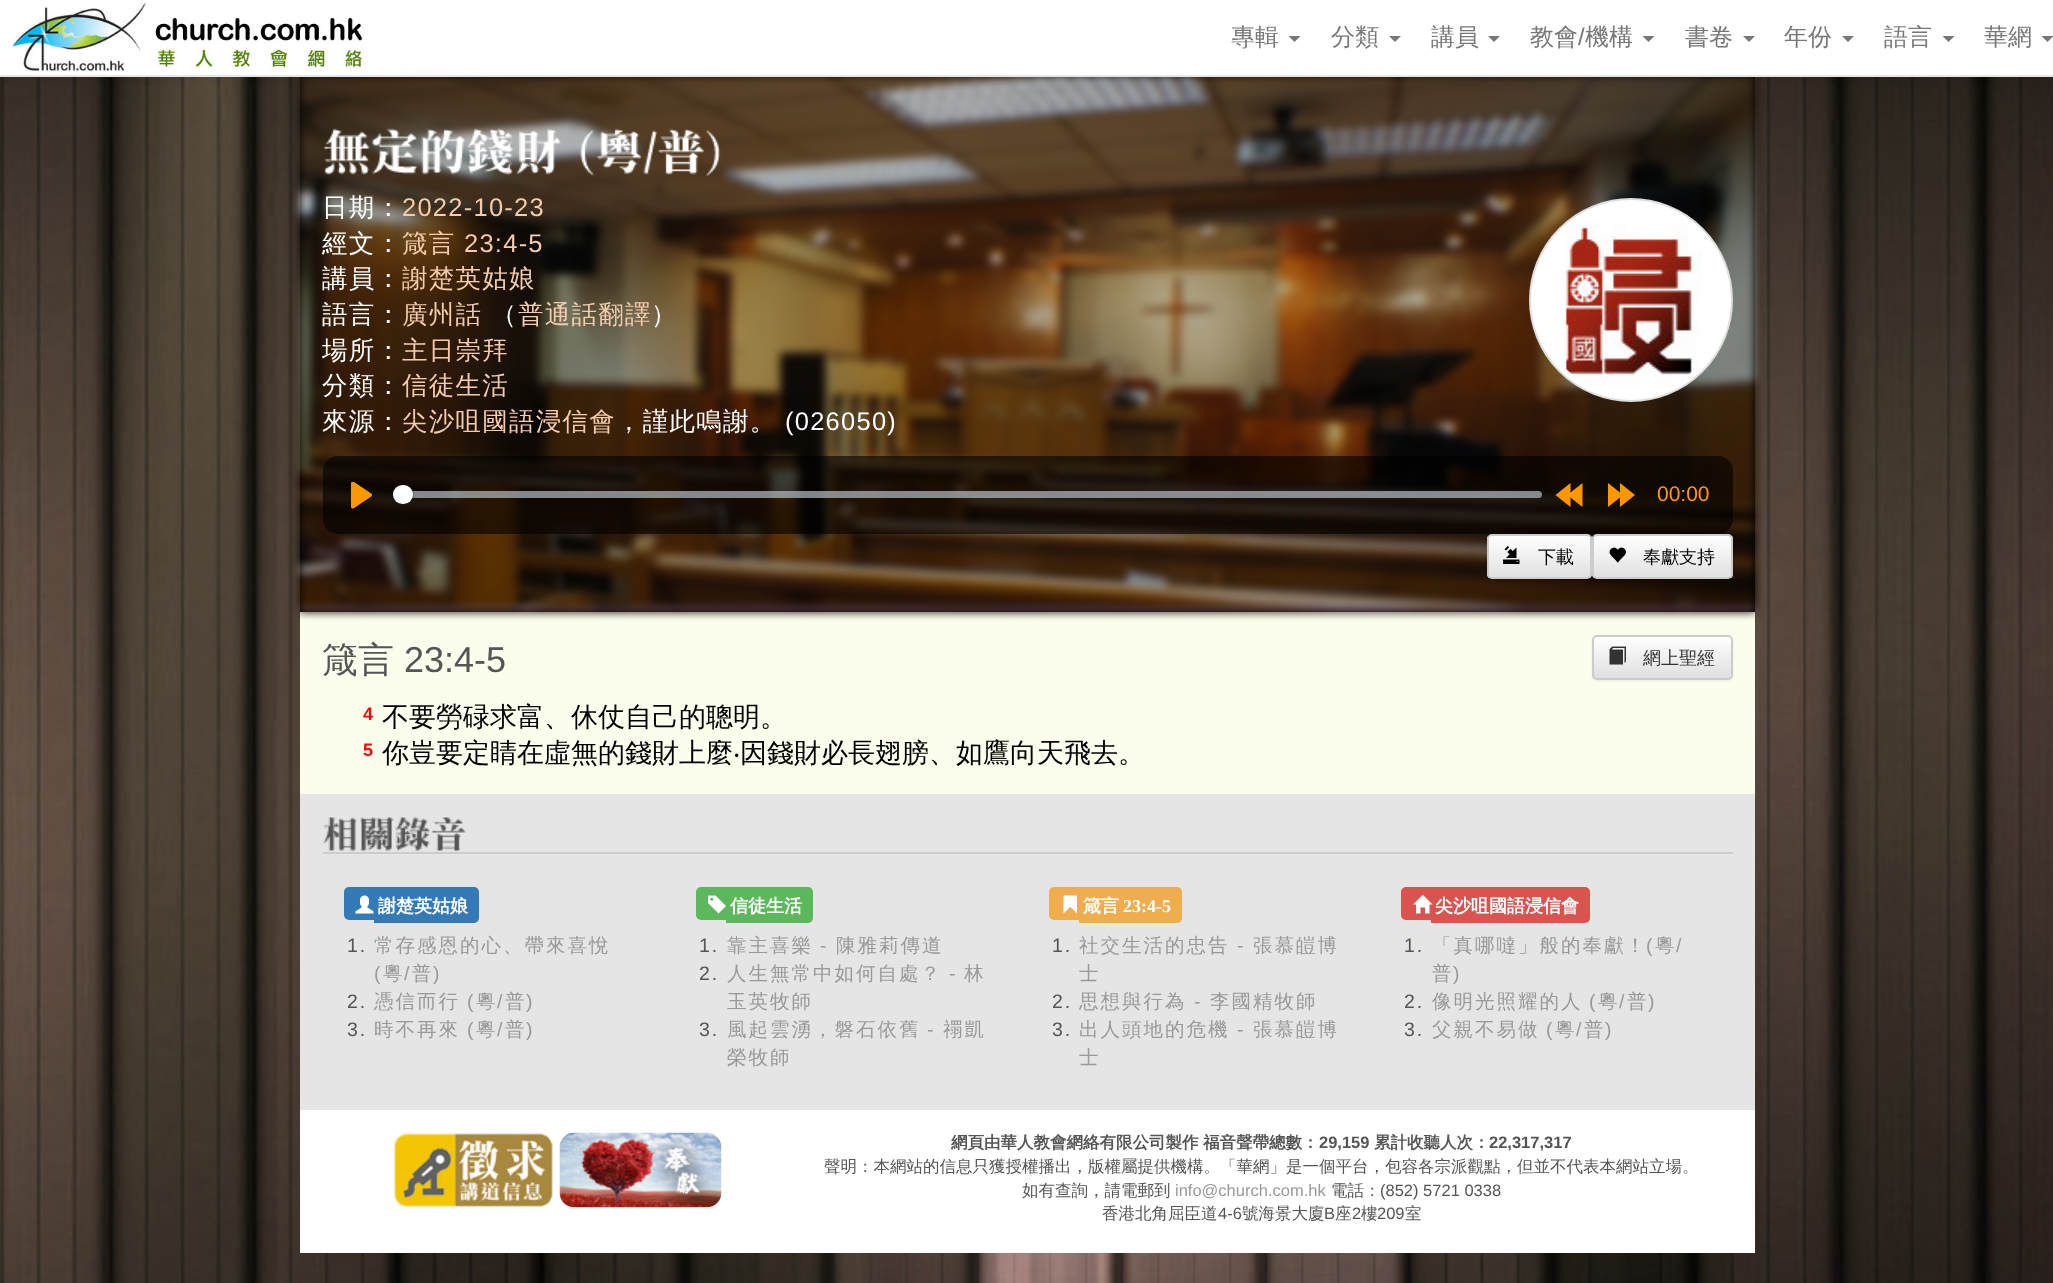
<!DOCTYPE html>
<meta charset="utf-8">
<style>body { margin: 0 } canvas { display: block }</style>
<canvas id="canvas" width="2053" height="1283"></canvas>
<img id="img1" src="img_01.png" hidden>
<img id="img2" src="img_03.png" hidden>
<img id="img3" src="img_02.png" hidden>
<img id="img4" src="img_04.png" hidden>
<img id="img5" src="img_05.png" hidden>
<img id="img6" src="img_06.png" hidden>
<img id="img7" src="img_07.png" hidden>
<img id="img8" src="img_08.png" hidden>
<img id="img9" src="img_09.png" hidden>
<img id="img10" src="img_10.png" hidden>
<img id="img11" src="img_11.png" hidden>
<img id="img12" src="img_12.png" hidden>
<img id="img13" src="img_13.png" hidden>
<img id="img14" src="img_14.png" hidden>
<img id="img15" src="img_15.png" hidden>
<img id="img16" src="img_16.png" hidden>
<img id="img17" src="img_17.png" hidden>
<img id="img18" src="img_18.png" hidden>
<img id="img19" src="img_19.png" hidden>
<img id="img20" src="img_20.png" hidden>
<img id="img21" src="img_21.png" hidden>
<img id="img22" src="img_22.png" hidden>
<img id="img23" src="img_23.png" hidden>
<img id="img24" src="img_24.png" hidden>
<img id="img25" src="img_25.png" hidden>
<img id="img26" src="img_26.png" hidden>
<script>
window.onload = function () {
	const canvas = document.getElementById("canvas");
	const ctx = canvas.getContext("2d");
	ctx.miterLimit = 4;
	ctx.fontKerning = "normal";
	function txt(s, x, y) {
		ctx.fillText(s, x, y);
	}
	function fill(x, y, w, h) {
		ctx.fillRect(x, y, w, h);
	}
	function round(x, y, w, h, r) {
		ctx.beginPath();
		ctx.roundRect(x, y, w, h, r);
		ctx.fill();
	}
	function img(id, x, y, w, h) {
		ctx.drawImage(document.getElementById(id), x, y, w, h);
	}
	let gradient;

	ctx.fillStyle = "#FFFFFF";
	fill(0, 0, 2053, 1283);
	img("img1", 0, 77, 2053, 1206);
	ctx.fillStyle = "#000000";
	fill(300, 77, 1455, 535);
	ctx.fillStyle = "#FBFEED";
	fill(300, 612, 1455, 182);
	ctx.fillStyle = "rgba(0, 0, 0, 0.7)";
	ctx.filter = "blur(4.5px)";
	ctx.beginPath();
	ctx.rect(300, 75, 1455, 537);
	ctx.fill();
	ctx.filter = "none";
	img("img2", 292, 77, 1470, 542);
	ctx.fillStyle = "rgba(0, 0, 0, 0.07)";
	ctx.filter = "blur(4px)";
	ctx.beginPath();
	ctx.rect(0, 2, 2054, 76);
	ctx.fill();
	ctx.filter = "none";
	ctx.fillStyle = "#E7E7E7";
	fill(0, 75, 2053, 2);
	ctx.fillStyle = "#FFFFFF";
	fill(0, 0, 2053, 75);
	img("img3", 12, 2, 354, 70);
	ctx.fillStyle = "#777777";
	ctx.beginPath();
	ctx.moveTo(1288.5, 36);
	ctx.lineTo(1300.5, 36);
	ctx.lineTo(1294.5, 42);
	ctx.closePath();
	ctx.fill();
	ctx.beginPath();
	ctx.moveTo(1389, 36);
	ctx.lineTo(1401, 36);
	ctx.lineTo(1395, 42);
	ctx.closePath();
	ctx.fill();
	ctx.beginPath();
	ctx.moveTo(1488, 36);
	ctx.lineTo(1500, 36);
	ctx.lineTo(1494, 42);
	ctx.closePath();
	ctx.fill();
	ctx.beginPath();
	ctx.moveTo(1642.5, 36);
	ctx.lineTo(1654.5, 36);
	ctx.lineTo(1648.5, 42);
	ctx.closePath();
	ctx.fill();
	ctx.beginPath();
	ctx.moveTo(1743, 36);
	ctx.lineTo(1755, 36);
	ctx.lineTo(1749, 42);
	ctx.closePath();
	ctx.fill();
	ctx.beginPath();
	ctx.moveTo(1842, 36);
	ctx.lineTo(1854, 36);
	ctx.lineTo(1848, 42);
	ctx.closePath();
	ctx.fill();
	ctx.beginPath();
	ctx.moveTo(1942.5, 36);
	ctx.lineTo(1954.5, 36);
	ctx.lineTo(1948.5, 42);
	ctx.closePath();
	ctx.fill();
	ctx.beginPath();
	ctx.moveTo(2041.5, 36);
	ctx.lineTo(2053.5, 36);
	ctx.lineTo(2047.5, 42);
	ctx.closePath();
	ctx.fill();
	img("img4", 323, 128, 47, 47);
	img("img5", 371, 128, 47, 47);
	img("img6", 421, 128, 45, 47);
	img("img7", 467, 128, 47, 47);
	img("img8", 516, 128, 45, 47);
	img("img9", 580, 128, 62, 48);
	img("img10", 643, 128, 61, 47);
	img("img11", 706, 130, 15, 46);
	ctx.fillStyle = "#FFFFFF";
	ctx.beginPath();
	ctx.arc(1631, 300, 101, 0, Math.PI * 2);
	ctx.fill();
	ctx.strokeStyle = "#DDDDDD";
	ctx.lineWidth = 2;
	ctx.stroke();
	img("img12", 1565, 221, 137, 166);
	ctx.fillStyle = "rgba(0, 0, 0, 0.6)";
	round(323, 456, 1410, 78, 15);
	img("img13", 351, 482, 21, 27);
	ctx.fillStyle = "rgba(193, 201, 209, 0.66)";
	round(393, 491, 1149, 7, 3.5);
	ctx.beginPath();
	ctx.roundRect(393, 484, 20, 21, 10);
	ctx.strokeStyle = "rgba(35, 41, 47, 0.2)";
	ctx.stroke();
	ctx.fillStyle = "rgba(0, 0, 0, 0.15)";
	ctx.filter = "blur(1px)";
	ctx.beginPath();
	ctx.roundRect(393, 486, 20, 20, 10);
	ctx.fill();
	ctx.filter = "none";
	ctx.fillStyle = "#FFFFFF";
	round(393, 485, 20, 19, 9.5);
	ctx.fillStyle = "#FF9800";
	ctx.beginPath();
	ctx.moveTo(1570.5, 483);
	ctx.lineTo(1555.5, 495);
	ctx.lineTo(1570.5, 507);
	ctx.lineTo(1570.5, 497.5);
	ctx.lineTo(1582.5, 507);
	ctx.lineTo(1582.5, 483);
	ctx.lineTo(1570.5, 492.5);
	ctx.closePath();
	ctx.fill();
	ctx.beginPath();
	ctx.moveTo(1620, 492.5);
	ctx.lineTo(1608, 483);
	ctx.lineTo(1608, 507);
	ctx.lineTo(1620, 497.5);
	ctx.lineTo(1620, 507);
	ctx.lineTo(1635, 495);
	ctx.lineTo(1620, 483);
	ctx.closePath();
	ctx.fill();
	ctx.save();
	ctx.beginPath();
	ctx.roundRect(1487, 534, 105, 45, 5);
	ctx.clip();
	gradient = ctx.createLinearGradient(1539, 536, 1539, 578);
	gradient.addColorStop(0, "#FFFFFF");
	gradient.addColorStop(1, "#E0E0E0");
	ctx.fillStyle = gradient;
	fill(1487, 536, 105, 42);
	ctx.restore();
	ctx.beginPath();
	ctx.roundRect(1488, 535, 103, 43, 4);
	ctx.strokeStyle = "#CCCCCC";
	ctx.stroke();
	img("img14", 1503, 546, 17, 18);
	ctx.save();
	ctx.beginPath();
	ctx.roundRect(1592, 534, 141, 45, 5);
	ctx.clip();
	gradient = ctx.createLinearGradient(1662, 536, 1662, 578);
	gradient.addColorStop(0, "#FFFFFF");
	gradient.addColorStop(1, "#E0E0E0");
	ctx.fillStyle = gradient;
	fill(1592, 536, 141, 42);
	ctx.restore();
	ctx.beginPath();
	ctx.roundRect(1593, 535, 139, 43, 4);
	ctx.stroke();
	img("img15", 1609, 547, 17, 16);
	ctx.fillStyle = "rgba(0, 0, 0, 0.07)";
	ctx.filter = "blur(1px)";
	ctx.beginPath();
	ctx.roundRect(1592, 636, 141, 45, 5);
	ctx.fill();
	ctx.filter = "none";
	ctx.save();
	ctx.beginPath();
	ctx.roundRect(1592, 635, 141, 45, 5);
	ctx.clip();
	gradient = ctx.createLinearGradient(1662, 636, 1662, 678);
	gradient.addColorStop(0, "#FFFFFF");
	gradient.addColorStop(1, "#E0E0E0");
	ctx.fillStyle = gradient;
	fill(1592, 636, 141, 42);
	ctx.restore();
	ctx.beginPath();
	ctx.roundRect(1593, 636, 139, 43, 4);
	ctx.stroke();
	img("img16", 1609, 646, 17, 19);
	ctx.fillStyle = "#E5E5E5";
	fill(300, 794, 1455, 316);
	ctx.fillStyle = "#CCCCCC";
	fill(323, 852, 1410, 2);
	img("img17", 323, 817, 34, 34);
	img("img18", 360, 817, 34, 34);
	img("img19", 395, 816, 35, 35);
	img("img20", 431, 817, 35, 34);
	ctx.fillStyle = "#337AB7";
	ctx.beginPath();
	ctx.roundRect(344, 887, 30, 33, [5, 0, 0, 5]);
	ctx.fill();
	ctx.beginPath();
	ctx.roundRect(374, 887, 105, 36, [0, 5, 5, 0]);
	ctx.fill();
	img("img21", 355, 895, 19, 19);
	ctx.fillStyle = "#5CB85C";
	ctx.beginPath();
	ctx.roundRect(696, 887, 30, 33, [5, 0, 0, 5]);
	ctx.fill();
	ctx.beginPath();
	ctx.roundRect(726, 887, 87, 36, [0, 5, 5, 0]);
	ctx.fill();
	img("img22", 708, 895, 18, 19);
	ctx.fillStyle = "#F0AD4E";
	ctx.beginPath();
	ctx.roundRect(1049, 887, 30, 33, [5, 0, 0, 5]);
	ctx.fill();
	ctx.beginPath();
	ctx.roundRect(1079, 887, 103, 36, [0, 5, 5, 0]);
	ctx.fill();
	img("img23", 1063, 895, 14, 19);
	ctx.fillStyle = "#D9534F";
	ctx.beginPath();
	ctx.roundRect(1401, 887, 30, 33, [5, 0, 0, 5]);
	ctx.fill();
	ctx.beginPath();
	ctx.roundRect(1431, 887, 159, 36, [0, 5, 5, 0]);
	ctx.fill();
	img("img24", 1413, 894, 20, 20);
	ctx.fillStyle = "#FFFFFF";
	fill(300, 1110, 1455, 143);
	img("img25", 393, 1133, 161, 75);
	img("img26", 559, 1132, 163, 76);
	ctx.font = "500 24px WenQuanYi Zen Hei";
	ctx.fillStyle = "#777777";
	txt("專輯", 1231, 45);
	txt("分類", 1331, 45);
	txt("講員", 1431, 45);
	txt("教會", 1530, 45);
	ctx.font = "24px Liberation Sans";
	txt("/", 1578, 45);
	ctx.font = "500 24px WenQuanYi Zen Hei";
	txt("機構", 1585, 45);
	txt("書卷", 1685, 45);
	txt("年份", 1784, 45);
	txt("語言", 1884, 45);
	txt("華網", 1984, 45);
	ctx.letterSpacing = "1.25px";
	ctx.font = "500 25.5px WenQuanYi Zen Hei";
	ctx.fillStyle = "#FFFFFF";
	txt("日期：", 322, 216);
	ctx.font = "25.5px Liberation Sans";
	ctx.fillStyle = "#F4CCAD";
	txt("2022-10-23", 402, 216);
	ctx.font = "500 25.5px WenQuanYi Zen Hei";
	ctx.fillStyle = "#FFFFFF";
	txt("經文：", 322, 252);
	ctx.fillStyle = "#F4CCAD";
	txt("箴言", 402, 252);
	ctx.font = "25.5px Liberation Sans";
	txt("23:4-5", 464, 252);
	ctx.font = "500 25.5px WenQuanYi Zen Hei";
	ctx.fillStyle = "#FFFFFF";
	txt("講員：", 322, 287);
	ctx.fillStyle = "#F4CCAD";
	txt("謝楚英姑娘", 402, 287);
	ctx.fillStyle = "#FFFFFF";
	txt("語言：", 322, 323);
	ctx.fillStyle = "#F4CCAD";
	txt("廣州話", 402, 323);
	ctx.fillStyle = "#FFFFFF";
	txt("（", 491, 323);
	ctx.fillStyle = "#F4CCAD";
	txt("普通話翻譯", 518, 323);
	ctx.fillStyle = "#FFFFFF";
	txt("）", 651, 323);
	txt("場所：", 322, 359);
	ctx.fillStyle = "#F4CCAD";
	txt("主日崇拜", 402, 359);
	ctx.fillStyle = "#FFFFFF";
	txt("分類：", 322, 394);
	ctx.fillStyle = "#F4CCAD";
	txt("信徒生活", 402, 394);
	ctx.fillStyle = "#FFFFFF";
	txt("來源：", 322, 430);
	ctx.fillStyle = "#F4CCAD";
	txt("尖沙咀國語浸信會", 402, 430);
	ctx.fillStyle = "#FFFFFF";
	txt("，謹此鳴謝。", 616, 430);
	ctx.font = "25.5px Liberation Sans";
	txt("(026050)", 785, 430);
	ctx.letterSpacing = "0px";
	ctx.font = "21px Liberation Sans";
	ctx.fillStyle = "#FF9800";
	txt("00:00", 1657, 501);
	ctx.font = "500 18px WenQuanYi Zen Hei";
	ctx.fillStyle = "#000000";
	txt("下載", 1538, 563);
	txt("奉獻支持", 1643, 563);
	ctx.font = "500 36px WenQuanYi Zen Hei";
	ctx.fillStyle = "#555555";
	txt("箴言", 322, 672);
	ctx.font = "36px Liberation Sans";
	txt("23:4-5", 404, 672);
	ctx.font = "bold 18px Liberation Sans";
	ctx.fillStyle = "#FF0000";
	txt("4", 363, 720);
	ctx.font = "500 27px WenQuanYi Zen Hei";
	ctx.fillStyle = "#000000";
	txt("不要勞碌求富、休仗自己的聰明。", 382, 726);
	ctx.font = "bold 18px Liberation Sans";
	ctx.fillStyle = "#FF0000";
	txt("5", 363, 756);
	ctx.font = "500 27px WenQuanYi Zen Hei";
	ctx.fillStyle = "#000000";
	txt("你豈要定睛在虛無的錢財上麼", 382, 762);
	ctx.font = "27px Noto Sans";
	txt("‧", 733, 762);
	ctx.font = "500 27px WenQuanYi Zen Hei";
	txt("因錢財必長翅膀、如鷹向天飛去。", 740, 762);
	ctx.font = "500 18px WenQuanYi Zen Hei";
	ctx.fillStyle = "#333333";
	txt("網上聖經", 1643, 664);
	ctx.font = "bold 18px WenQuanYi Zen Hei";
	ctx.fillStyle = "#FFFFFF";
	txt("謝楚英姑娘", 378, 912);
	ctx.letterSpacing = "2px";
	ctx.font = "19.5px Liberation Sans";
	ctx.fillStyle = "#555555";
	txt("1.", 347, 952);
	ctx.font = "500 19.5px WenQuanYi Zen Hei";
	ctx.fillStyle = "#999999";
	txt("常存感恩的心、帶來喜悅", 374, 952);
	ctx.font = "19.5px Liberation Sans";
	txt("(", 374, 980);
	ctx.font = "500 19.5px WenQuanYi Zen Hei";
	txt("粵", 383, 980);
	ctx.font = "19.5px Liberation Sans";
	txt("/", 404, 980);
	ctx.font = "500 19.5px WenQuanYi Zen Hei";
	txt("普", 412, 980);
	ctx.font = "19.5px Liberation Sans";
	txt(")", 433, 980);
	ctx.fillStyle = "#555555";
	txt("2.", 347, 1008);
	ctx.font = "500 19.5px WenQuanYi Zen Hei";
	ctx.fillStyle = "#999999";
	txt("憑信而行", 374, 1008);
	ctx.font = "19.5px Liberation Sans";
	txt("(", 467, 1008);
	ctx.font = "500 19.5px WenQuanYi Zen Hei";
	txt("粵", 476, 1008);
	ctx.font = "19.5px Liberation Sans";
	txt("/", 497, 1008);
	ctx.font = "500 19.5px WenQuanYi Zen Hei";
	txt("普", 505, 1008);
	ctx.font = "19.5px Liberation Sans";
	txt(")", 526, 1008);
	ctx.fillStyle = "#555555";
	txt("3.", 347, 1036);
	ctx.font = "500 19.5px WenQuanYi Zen Hei";
	ctx.fillStyle = "#999999";
	txt("時不再來", 374, 1036);
	ctx.font = "19.5px Liberation Sans";
	txt("(", 467, 1036);
	ctx.font = "500 19.5px WenQuanYi Zen Hei";
	txt("粵", 476, 1036);
	ctx.font = "19.5px Liberation Sans";
	txt("/", 497, 1036);
	ctx.font = "500 19.5px WenQuanYi Zen Hei";
	txt("普", 505, 1036);
	ctx.font = "19.5px Liberation Sans";
	txt(")", 526, 1036);
	ctx.letterSpacing = "0px";
	ctx.font = "bold 18px WenQuanYi Zen Hei";
	ctx.fillStyle = "#FFFFFF";
	txt("信徒生活", 730, 912);
	ctx.letterSpacing = "2px";
	ctx.font = "19.5px Liberation Sans";
	ctx.fillStyle = "#555555";
	txt("1.", 699, 952);
	ctx.font = "500 19.5px WenQuanYi Zen Hei";
	ctx.fillStyle = "#999999";
	txt("靠主喜樂", 727, 952);
	ctx.font = "19.5px Liberation Sans";
	txt("-", 820, 952);
	ctx.font = "500 19.5px WenQuanYi Zen Hei";
	txt("陳雅莉傳道", 836, 952);
	ctx.font = "19.5px Liberation Sans";
	ctx.fillStyle = "#555555";
	txt("2.", 699, 980);
	ctx.font = "500 19.5px WenQuanYi Zen Hei";
	ctx.fillStyle = "#999999";
	txt("人生無常中如何自處？", 727, 980);
	ctx.font = "19.5px Liberation Sans";
	txt("-", 949, 980);
	ctx.font = "500 19.5px WenQuanYi Zen Hei";
	txt("林", 964, 980);
	txt("玉英牧師", 727, 1008);
	ctx.font = "19.5px Liberation Sans";
	ctx.fillStyle = "#555555";
	txt("3.", 699, 1036);
	ctx.font = "500 19.5px WenQuanYi Zen Hei";
	ctx.fillStyle = "#999999";
	txt("風起雲湧，磐石依舊", 727, 1036);
	ctx.font = "19.5px Liberation Sans";
	txt("-", 927, 1036);
	ctx.font = "500 19.5px WenQuanYi Zen Hei";
	txt("禤凱", 943, 1036);
	txt("榮牧師", 727, 1064);
	ctx.letterSpacing = "0px";
	ctx.font = "bold 18px WenQuanYi Zen Hei";
	ctx.fillStyle = "#FFFFFF";
	txt("箴言", 1083, 912);
	ctx.font = "bold 18px Liberation Serif";
	txt("23:4-5", 1123, 912);
	ctx.letterSpacing = "2px";
	ctx.font = "19.5px Liberation Sans";
	ctx.fillStyle = "#555555";
	txt("1.", 1052, 952);
	ctx.font = "500 19.5px WenQuanYi Zen Hei";
	ctx.fillStyle = "#999999";
	txt("社交生活的忠告", 1079, 952);
	ctx.font = "19.5px Liberation Sans";
	txt("-", 1237, 952);
	ctx.font = "500 19.5px WenQuanYi Zen Hei";
	txt("張慕皚博", 1253, 952);
	txt("士", 1079, 980);
	ctx.font = "19.5px Liberation Sans";
	ctx.fillStyle = "#555555";
	txt("2.", 1052, 1008);
	ctx.font = "500 19.5px WenQuanYi Zen Hei";
	ctx.fillStyle = "#999999";
	txt("思想與行為", 1079, 1008);
	ctx.font = "19.5px Liberation Sans";
	txt("-", 1194, 1008);
	ctx.font = "500 19.5px WenQuanYi Zen Hei";
	txt("李國精牧師", 1210, 1008);
	ctx.font = "19.5px Liberation Sans";
	ctx.fillStyle = "#555555";
	txt("3.", 1052, 1036);
	ctx.font = "500 19.5px WenQuanYi Zen Hei";
	ctx.fillStyle = "#999999";
	txt("出人頭地的危機", 1079, 1036);
	ctx.font = "19.5px Liberation Sans";
	txt("-", 1237, 1036);
	ctx.font = "500 19.5px WenQuanYi Zen Hei";
	txt("張慕皚博", 1253, 1036);
	txt("士", 1079, 1064);
	ctx.letterSpacing = "0px";
	ctx.font = "bold 18px WenQuanYi Zen Hei";
	ctx.fillStyle = "#FFFFFF";
	txt("尖沙咀國語浸信會", 1435, 912);
	ctx.letterSpacing = "2px";
	ctx.font = "19.5px Liberation Sans";
	ctx.fillStyle = "#555555";
	txt("1.", 1404, 952);
	ctx.font = "500 19.5px WenQuanYi Zen Hei";
	ctx.fillStyle = "#999999";
	txt("「真哪噠」般的奉獻！", 1432, 952);
	ctx.font = "19.5px Liberation Sans";
	txt("(", 1646, 952);
	ctx.font = "500 19.5px WenQuanYi Zen Hei";
	txt("粵", 1655, 952);
	ctx.font = "19.5px Liberation Sans";
	txt("/", 1676, 952);
	ctx.font = "500 19.5px WenQuanYi Zen Hei";
	txt("普", 1432, 980);
	ctx.font = "19.5px Liberation Sans";
	txt(")", 1453, 980);
	ctx.fillStyle = "#555555";
	txt("2.", 1404, 1008);
	ctx.font = "500 19.5px WenQuanYi Zen Hei";
	ctx.fillStyle = "#999999";
	txt("像明光照耀的人", 1432, 1008);
	ctx.font = "19.5px Liberation Sans";
	txt("(", 1589, 1008);
	ctx.font = "500 19.5px WenQuanYi Zen Hei";
	txt("粵", 1598, 1008);
	ctx.font = "19.5px Liberation Sans";
	txt("/", 1619, 1008);
	ctx.font = "500 19.5px WenQuanYi Zen Hei";
	txt("普", 1627, 1008);
	ctx.font = "19.5px Liberation Sans";
	txt(")", 1648, 1008);
	ctx.fillStyle = "#555555";
	txt("3.", 1404, 1036);
	ctx.font = "500 19.5px WenQuanYi Zen Hei";
	ctx.fillStyle = "#999999";
	txt("父親不易做", 1432, 1036);
	ctx.font = "19.5px Liberation Sans";
	txt("(", 1546, 1036);
	ctx.font = "500 19.5px WenQuanYi Zen Hei";
	txt("粵", 1555, 1036);
	ctx.font = "19.5px Liberation Sans";
	txt("/", 1576, 1036);
	ctx.font = "500 19.5px WenQuanYi Zen Hei";
	txt("普", 1584, 1036);
	ctx.font = "19.5px Liberation Sans";
	txt(")", 1605, 1036);
	ctx.letterSpacing = "0px";
	ctx.font = "bold 16.5px WenQuanYi Zen Hei";
	ctx.fillStyle = "#555555";
	txt("網頁由華人教會網絡有限公司製作", 951, 1148);
	txt("福音聲帶總數：", 1203, 1148);
	ctx.font = "bold 16.5px Liberation Sans";
	txt("29,159", 1319, 1148);
	ctx.font = "bold 16.5px WenQuanYi Zen Hei";
	txt("累計收聽人次：", 1374, 1148);
	ctx.font = "bold 16.5px Liberation Sans";
	txt("22,317,317", 1489, 1148);
	ctx.font = "500 16.5px WenQuanYi Zen Hei";
	txt("聲明：本網站的信息只獲授權播出，版權屬提供機構。「華網」是一個平台，包容各宗派觀點，但並不代表本網站立場。", 824, 1172);
	txt("如有查詢，請電郵到", 1022, 1196);
	ctx.font = "16.5px Liberation Sans";
	ctx.fillStyle = "#999999";
	txt("info@church.com.hk", 1175, 1196);
	ctx.font = "500 16.5px WenQuanYi Zen Hei";
	ctx.fillStyle = "#555555";
	txt("電話：", 1331, 1196);
	ctx.font = "16.5px Liberation Sans";
	txt("(852) 5721 0338", 1380, 1196);
	ctx.font = "500 16.5px WenQuanYi Zen Hei";
	txt("香港北角屈臣道", 1102, 1219);
	ctx.font = "16.5px Liberation Sans";
	txt("4-6", 1218, 1219);
	ctx.font = "500 16.5px WenQuanYi Zen Hei";
	txt("號海景大廈", 1242, 1219);
	ctx.font = "16.5px Liberation Sans";
	txt("B", 1324, 1219);
	ctx.font = "500 16.5px WenQuanYi Zen Hei";
	txt("座", 1335, 1219);
	ctx.font = "16.5px Liberation Sans";
	txt("2", 1352, 1219);
	ctx.font = "500 16.5px WenQuanYi Zen Hei";
	txt("樓", 1361, 1219);
	ctx.font = "16.5px Liberation Sans";
	txt("209", 1377, 1219);
	ctx.font = "500 16.5px WenQuanYi Zen Hei";
	txt("室", 1405, 1219);
};
</script>
